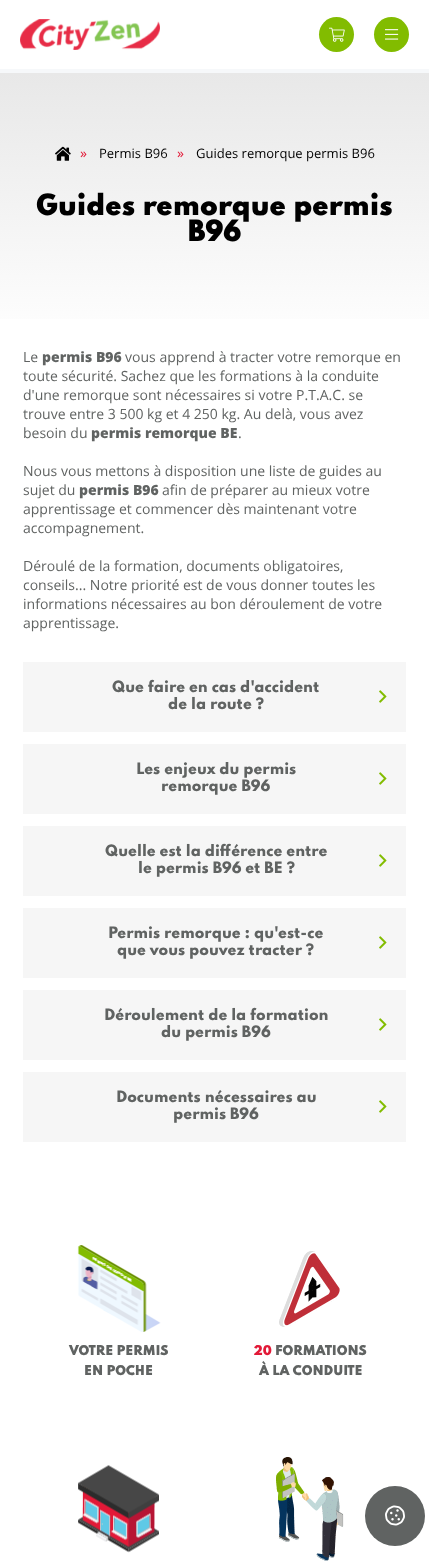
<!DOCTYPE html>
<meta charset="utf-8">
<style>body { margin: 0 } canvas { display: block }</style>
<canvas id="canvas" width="429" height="1562"></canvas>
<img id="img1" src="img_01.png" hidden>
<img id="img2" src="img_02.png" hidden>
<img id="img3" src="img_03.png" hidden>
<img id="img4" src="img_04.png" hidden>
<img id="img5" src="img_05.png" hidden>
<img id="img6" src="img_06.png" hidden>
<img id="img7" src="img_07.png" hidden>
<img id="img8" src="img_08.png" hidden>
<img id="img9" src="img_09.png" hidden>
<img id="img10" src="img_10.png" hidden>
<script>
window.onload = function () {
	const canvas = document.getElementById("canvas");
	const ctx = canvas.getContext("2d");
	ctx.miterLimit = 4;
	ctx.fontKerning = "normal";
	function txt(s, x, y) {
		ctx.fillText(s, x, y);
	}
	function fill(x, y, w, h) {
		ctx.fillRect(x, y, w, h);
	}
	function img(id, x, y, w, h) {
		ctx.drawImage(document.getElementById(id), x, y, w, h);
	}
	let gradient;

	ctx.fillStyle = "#FFFFFF";
	fill(0, 0, 429, 1562);
	ctx.fillStyle = "#F6F8FA";
	fill(0, 69, 429, 4);
	img("img1", 20, 19, 140, 31);
	ctx.fillStyle = "#82BC00";
	ctx.beginPath();
	ctx.arc(336.5, 34.5, 17.5, 0, Math.PI * 2);
	ctx.fill();
	img("img2", 329, 27, 16, 15);
	ctx.beginPath();
	ctx.arc(391.5, 34.5, 17.5, 0, Math.PI * 2);
	ctx.fill();
	img("img3", 385, 29, 14, 11);
	gradient = ctx.createLinearGradient(214, 73, 215, 623);
	gradient.addColorStop(0, "#E8E8E8");
	gradient.addColorStop(0.5, "#FFFFFF");
	ctx.fillStyle = gradient;
	fill(0, 73, 429, 246);
	img("img4", 55, 146, 16, 15);
	ctx.fillStyle = "#F6F6F6";
	fill(23, 662, 383, 70);
	img("img5", 379, 690, 8, 13);
	fill(23, 744, 383, 70);
	img("img5", 379, 772, 8, 13);
	fill(23, 826, 383, 70);
	img("img5", 379, 854, 8, 13);
	fill(23, 908, 383, 70);
	img("img5", 379, 936, 8, 13);
	fill(23, 990, 383, 70);
	img("img5", 379, 1018, 8, 13);
	fill(23, 1072, 383, 70);
	img("img5", 379, 1100, 8, 13);
	img("img6", 77, 1245, 84, 87);
	img("img7", 279, 1251, 61, 76);
	img("img8", 78, 1465, 81, 88);
	img("img9", 276, 1457, 68, 104);
	ctx.fillStyle = "#606362";
	ctx.beginPath();
	ctx.arc(395, 1516, 30, 0, Math.PI * 2);
	ctx.fill();
	img("img10", 385, 1505, 20, 21);
	ctx.font = "14px Open Sans";
	ctx.fillStyle = "#E21937";
	txt("»", 80, 158);
	ctx.font = "13px Open Sans";
	ctx.fillStyle = "#000000";
	txt("Permis B96", 99, 158);
	ctx.font = "14px Open Sans";
	ctx.fillStyle = "#E21937";
	txt("»", 177, 158);
	ctx.font = "13px Open Sans";
	ctx.fillStyle = "#000000";
	txt("Guides remorque permis B96", 196, 158);
	ctx.font = "900 26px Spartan";
	txt("Guides remorque permis", 36, 215);
	txt("B96", 188, 241);
	ctx.font = "14px Open Sans";
	ctx.fillStyle = "#606362";
	txt("Le", 23, 362);
	ctx.font = "800 14px Open Sans";
	txt("permis B96", 42, 362);
	ctx.font = "14px Open Sans";
	txt("vous apprend à tracter votre remorque en", 125, 362);
	txt("toute sécurité. Sachez que les formations à la conduite", 23, 381);
	txt("d'une remorque sont nécessaires si votre P.T.A.C. se", 23, 400);
	txt("trouve entre 3 500 kg et 4 250 kg. Au delà, vous avez", 23, 419);
	txt("besoin du", 23, 438);
	ctx.font = "800 14px Open Sans";
	txt("permis remorque BE", 91, 438);
	ctx.font = "14px Open Sans";
	txt(".", 238, 438);
	txt("Nous vous mettons à disposition une liste de guides au", 23, 476);
	txt("sujet du", 23, 495);
	ctx.font = "800 14px Open Sans";
	txt("permis B96", 79, 495);
	ctx.font = "14px Open Sans";
	txt("afin de préparer au mieux votre", 162, 495);
	txt("apprentissage et commencer dès maintenant votre", 23, 514);
	txt("accompagnement.", 23, 533);
	txt("Déroulé de la formation, documents obligatoires,", 23, 571);
	txt("conseils... Notre priorité est de vous donner toutes les", 23, 590);
	txt("informations nécessaires au bon déroulement de votre", 23, 609);
	txt("apprentissage.", 23, 628);
	ctx.font = "800 14px Spartan";
	txt("Que faire en cas d'accident", 112, 692);
	txt("de la route ?", 168, 709);
	txt("Les enjeux du permis", 136, 774);
	txt("remorque B96", 161, 791);
	txt("Quelle est la différence entre", 105, 856);
	txt("le permis B96 et BE ?", 138, 873);
	txt("Permis remorque : qu'est-ce", 108, 938);
	txt("que vous pouvez tracter ?", 117, 955);
	txt("Déroulement de la formation", 104, 1020);
	txt("du permis B96", 161, 1037);
	txt("Documents nécessaires au", 116, 1102);
	txt("permis B96", 173, 1119);
	ctx.font = "900 12px Spartan";
	txt("VOTRE PERMIS", 69, 1355);
	txt("EN POCHE", 84, 1375);
	ctx.fillStyle = "#E21937";
	txt("20", 254, 1355);
	ctx.fillStyle = "#606362";
	txt("FORMATIONS", 275, 1355);
	txt("À LA CONDUITE", 259, 1375);
};
</script>
